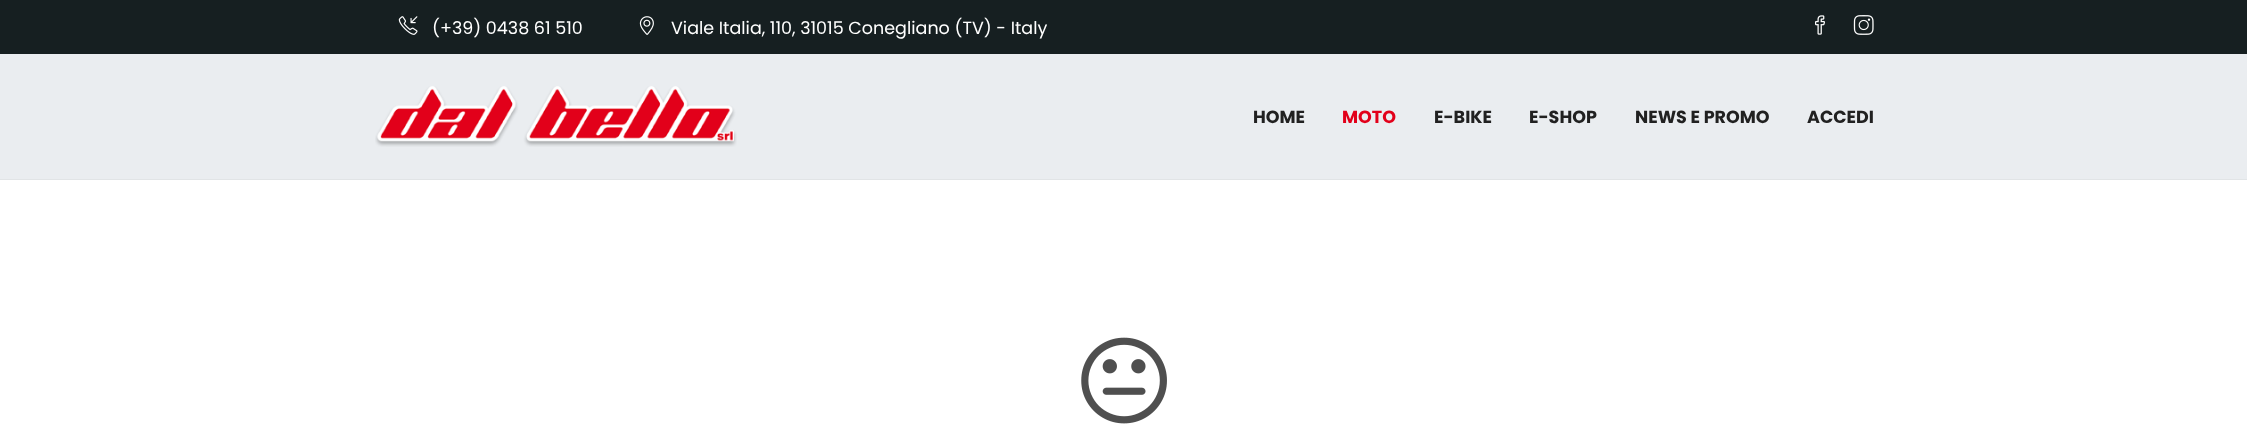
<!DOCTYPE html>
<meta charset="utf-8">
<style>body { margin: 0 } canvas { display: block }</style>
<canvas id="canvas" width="2247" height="440"></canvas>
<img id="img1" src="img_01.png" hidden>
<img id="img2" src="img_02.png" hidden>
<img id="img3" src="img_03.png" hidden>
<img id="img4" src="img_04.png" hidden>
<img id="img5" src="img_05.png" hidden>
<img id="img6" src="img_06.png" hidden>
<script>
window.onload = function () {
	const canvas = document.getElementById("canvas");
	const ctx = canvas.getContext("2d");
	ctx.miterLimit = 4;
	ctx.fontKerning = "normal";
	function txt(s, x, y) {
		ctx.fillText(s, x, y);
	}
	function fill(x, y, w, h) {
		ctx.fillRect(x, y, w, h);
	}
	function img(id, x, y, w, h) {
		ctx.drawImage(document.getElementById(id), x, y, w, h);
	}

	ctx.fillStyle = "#FFFFFF";
	fill(0, 0, 2247, 440);
	ctx.fillStyle = "#161F21";
	fill(0, 0, 2247, 54);
	img("img1", 398, 16, 20, 19);
	img("img2", 639, 16, 15, 19);
	img("img3", 1815, 15, 10, 20);
	img("img4", 1853, 15, 21, 20);
	ctx.fillStyle = "#EAEDF0";
	fill(0, 54, 2247, 125);
	ctx.fillStyle = "#E1E4E6";
	fill(0, 179, 2247, 1);
	img("img5", 375, 86, 362, 61);
	img("img6", 1081, 337, 86, 87);
	ctx.font = "17.5px Poppins";
	ctx.fillStyle = "#FFFFFF";
	txt("(+39) 0438 61 510", 432, 34);
	txt("Viale Italia, 110, 31015 Conegliano (TV) - Italy", 671, 34);
	ctx.font = "bold 17.5px Poppins";
	ctx.fillStyle = "#212121";
	txt("HOME", 1253, 123);
	ctx.fillStyle = "#E2001A";
	txt("MOTO", 1342, 123);
	ctx.fillStyle = "#212121";
	txt("E-BIKE", 1434, 123);
	txt("E-SHOP", 1529, 123);
	txt("NEWS E PROMO", 1635, 123);
	txt("ACCEDI", 1807, 123);
};
</script>
